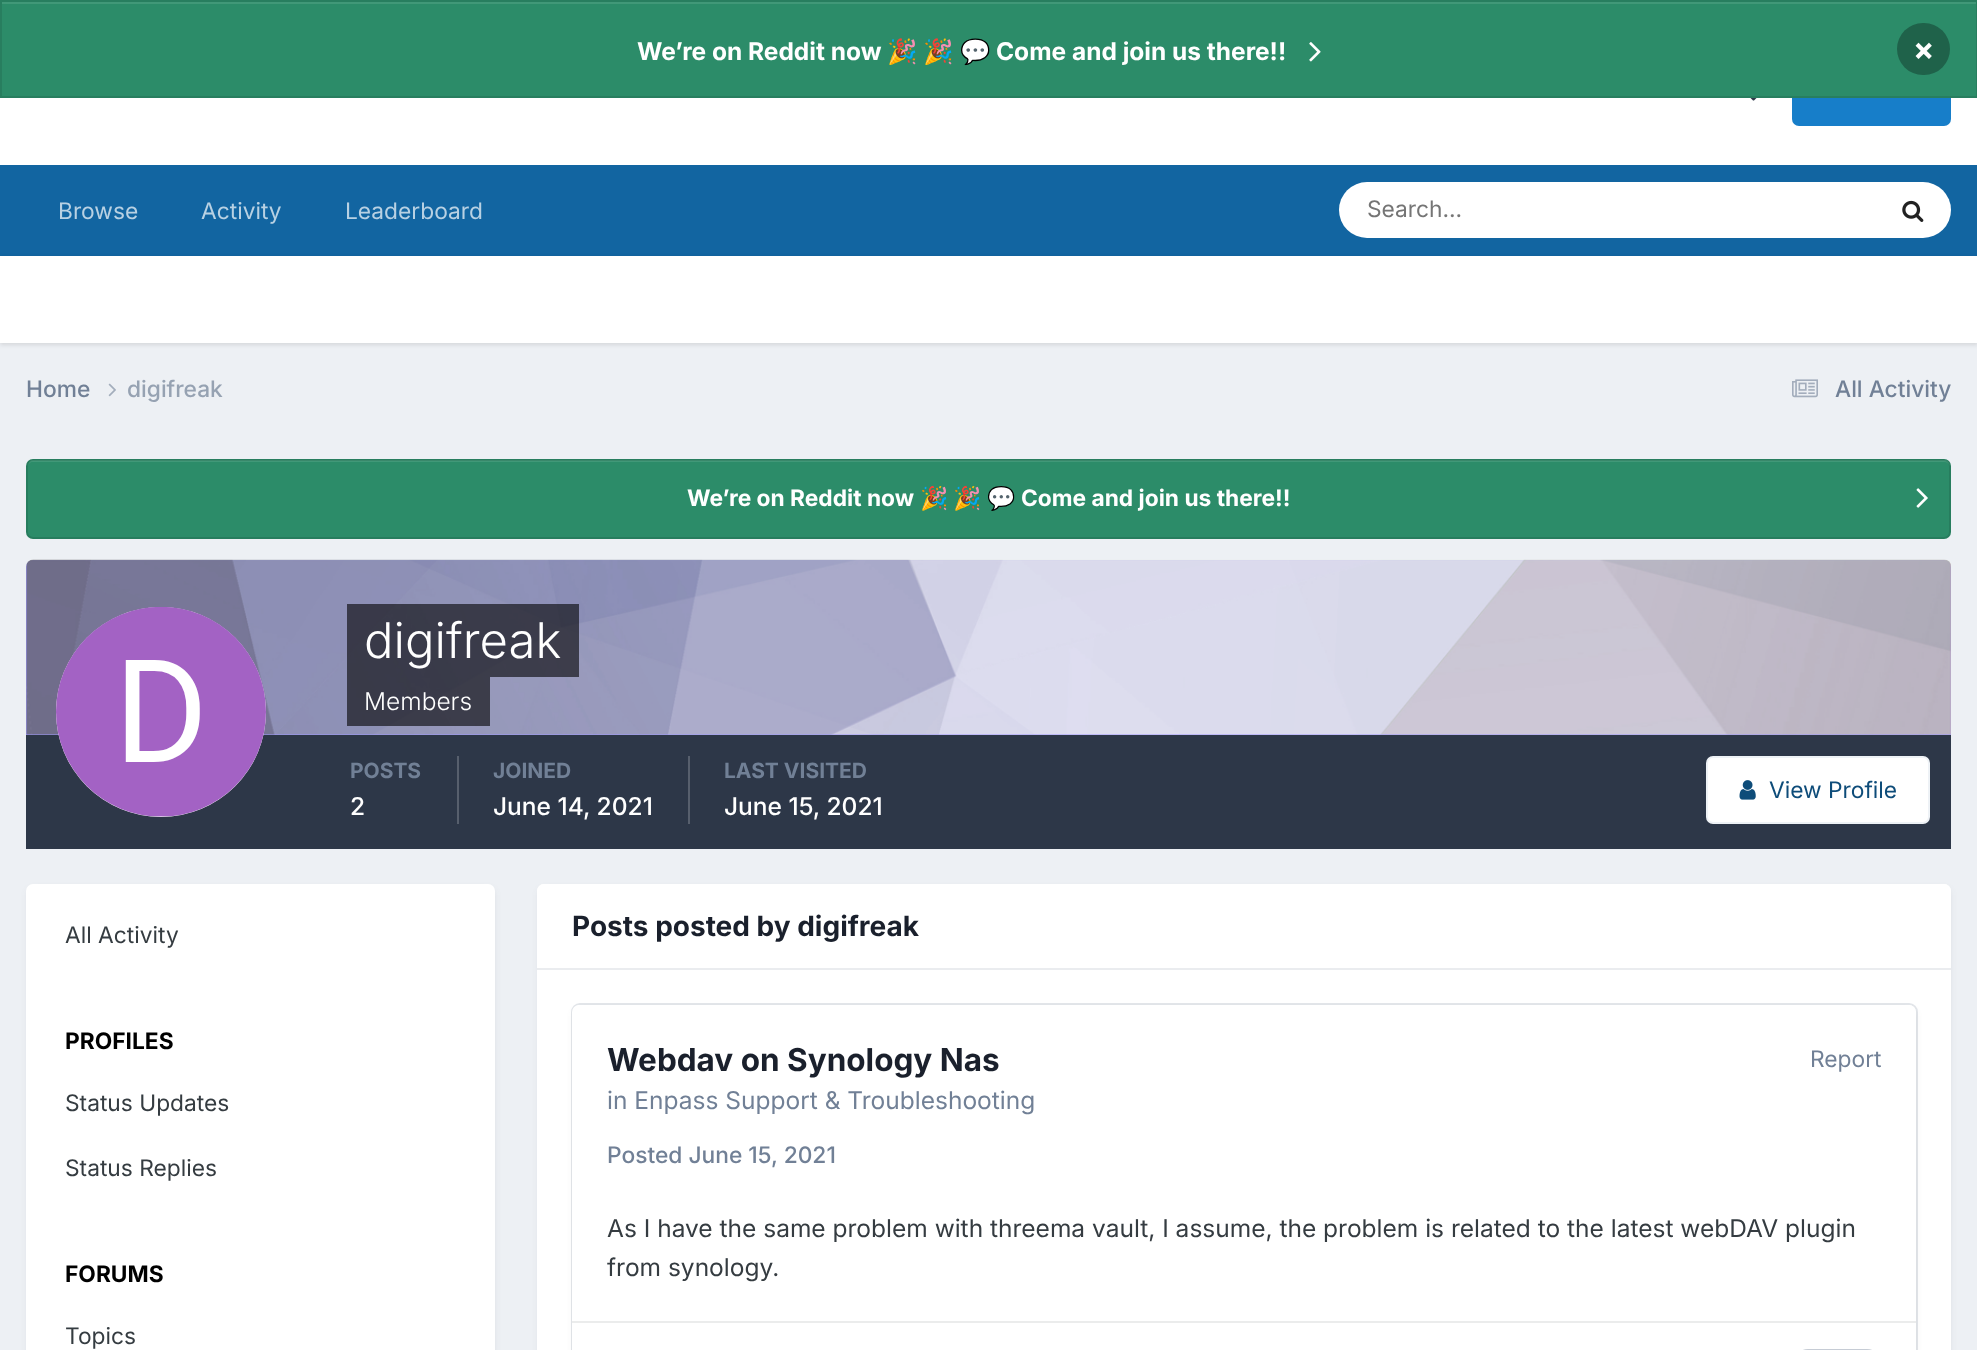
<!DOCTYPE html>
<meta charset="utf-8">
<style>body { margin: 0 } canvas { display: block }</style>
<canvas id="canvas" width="1977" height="1350"></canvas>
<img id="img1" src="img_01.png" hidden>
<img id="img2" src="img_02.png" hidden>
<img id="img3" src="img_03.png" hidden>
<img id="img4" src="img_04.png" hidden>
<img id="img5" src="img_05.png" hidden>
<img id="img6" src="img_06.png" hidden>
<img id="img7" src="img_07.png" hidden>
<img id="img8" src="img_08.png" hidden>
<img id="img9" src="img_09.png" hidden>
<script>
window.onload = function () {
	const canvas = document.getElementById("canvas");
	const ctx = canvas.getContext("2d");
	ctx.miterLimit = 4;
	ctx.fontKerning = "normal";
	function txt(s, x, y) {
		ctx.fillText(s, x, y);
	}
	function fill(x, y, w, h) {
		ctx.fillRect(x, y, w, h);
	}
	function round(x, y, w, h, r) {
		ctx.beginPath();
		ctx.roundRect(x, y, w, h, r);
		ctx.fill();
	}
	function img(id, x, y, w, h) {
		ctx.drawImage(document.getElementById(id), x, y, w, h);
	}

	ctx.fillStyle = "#EDF0F4";
	fill(0, 0, 1977, 1350);
	ctx.fillStyle = "#FFFFFF";
	fill(0, 98, 1977, 67);
	ctx.fillStyle = "#177EC9";
	round(1792, 65, 159, 61, 7);
	ctx.fillStyle = "#2C8C69";
	fill(2, 4, 1974, 92);
	ctx.fillStyle = "#419878";
	fill(2, 2, 1974, 2);
	ctx.strokeStyle = "#287E5F";
	ctx.lineWidth = 2;
	ctx.strokeRect(1, 1, 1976, 96);
	img("img1", 1309, 42, 12, 20);
	ctx.fillStyle = "#1F624A";
	round(1897, 23, 53, 52, 26);
	img("img2", 1750, 98, 7, 3);
	ctx.fillStyle = "#1265A1";
	fill(0, 165, 1977, 91);
	ctx.fillStyle = "#FFFFFF";
	round(1339, 182, 612, 56, 28);
	img("img3", 1902, 200, 22, 22);
	ctx.fillStyle = "rgba(0, 0, 0, 0.1)";
	ctx.filter = "blur(2px)";
	ctx.beginPath();
	ctx.rect(0, 257, 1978, 88);
	ctx.fill();
	ctx.filter = "none";
	ctx.fillStyle = "#FFFFFF";
	fill(0, 256, 1977, 87);
	img("img4", 108, 383, 8, 14);
	img("img5", 1792, 379, 26, 19);
	ctx.fillStyle = "#2C8C69";
	round(26, 459, 1925, 80, 7);
	ctx.fillStyle = "#419878";
	ctx.beginPath();
	ctx.moveTo(33, 462);
	ctx.lineTo(1944, 462);
	ctx.bezierCurveTo(1947, 462, 1950, 464, 1950, 467);
	ctx.bezierCurveTo(1950, 464, 1949, 460, 1945, 460);
	ctx.lineTo(33, 460);
	ctx.bezierCurveTo(29, 460, 28, 464, 28, 467);
	ctx.bezierCurveTo(28, 464, 30, 462, 33, 462);
	ctx.closePath();
	ctx.fill();
	ctx.beginPath();
	ctx.roundRect(27, 460, 1923, 78, 6);
	ctx.strokeStyle = "rgba(0, 0, 0, 0.1)";
	ctx.stroke();
	img("img6", 1916, 488, 12, 20);
	ctx.fillStyle = "#A099FF";
	ctx.beginPath();
	ctx.roundRect(26, 560, 1925, 175, [7, 7, 0, 0]);
	ctx.fill();
	img("img7", 26, 559, 1925, 176);
	ctx.fillStyle = "#2D3748";
	fill(26, 735, 1925, 114);
	ctx.fillStyle = "#FFFFFF";
	ctx.beginPath();
	ctx.arc(161, 712, 105, 0, Math.PI * 2);
	ctx.fill();
	img("img8", 56, 607, 210, 210);
	ctx.fillStyle = "rgba(0, 0, 0, 0.6)";
	fill(347, 604, 232, 73);
	fill(347, 677, 143, 49);
	ctx.fillStyle = "#575F6D";
	fill(457, 756, 2, 68);
	fill(688, 756, 2, 68);
	ctx.fillStyle = "#FFFFFF";
	round(1706, 756, 224, 68, 7);
	ctx.beginPath();
	ctx.roundRect(1707, 757, 222, 66, 6);
	ctx.strokeStyle = "rgba(14, 76, 121, 0.07)";
	ctx.stroke();
	img("img9", 1739, 780, 17, 20);
	ctx.fillStyle = "rgba(45, 55, 72, 0.1)";
	ctx.filter = "blur(3.5px)";
	ctx.beginPath();
	ctx.roundRect(28, 889, 466, 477, 5);
	ctx.fill();
	ctx.filter = "none";
	ctx.fillStyle = "#FFFFFF";
	round(26, 884, 469, 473, 7);
	ctx.fillStyle = "rgba(45, 55, 72, 0.1)";
	ctx.filter = "blur(3.5px)";
	ctx.beginPath();
	ctx.roundRect(539, 889, 1411, 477, 5);
	ctx.fill();
	ctx.filter = "none";
	ctx.fillStyle = "#FFFFFF";
	round(537, 884, 1414, 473, 7);
	ctx.beginPath();
	ctx.roundRect(537, 884, 1414, 86, [7, 7, 0, 0]);
	ctx.fill();
	ctx.fillStyle = "#EAECEF";
	fill(537, 968, 1414, 2);
	ctx.fillStyle = "rgba(45, 55, 72, 0.1)";
	ctx.filter = "blur(3.5px)";
	ctx.beginPath();
	ctx.roundRect(574, 1010, 1341, 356, 5);
	ctx.fill();
	ctx.filter = "none";
	ctx.beginPath();
	ctx.roundRect(572, 1004, 1345, 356, 8);
	ctx.strokeStyle = "rgba(113, 128, 150, 0.2)";
	ctx.stroke();
	ctx.fillStyle = "#FFFFFF";
	round(572, 1005, 1344, 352, 7);
	ctx.fillStyle = "#EBECEC";
	fill(572, 1321, 1344, 2);
	ctx.beginPath();
	ctx.roundRect(1795, 1350, 85, 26, 23.5);
	ctx.strokeStyle = "#C6CCD5";
	ctx.stroke();
	ctx.font = "bold 24.5px Inter";
	ctx.fillStyle = "#FFFFFF";
	txt("We’re on Reddit now", 637, 60);
	ctx.font = "bold 24.5px Noto Color Emoji";
	txt("🎉", 887, 60);
	txt("🎉", 923, 60);
	txt("💬", 960, 60);
	ctx.font = "bold 24.5px Inter";
	txt("Come and join us there!!", 996, 60);
	ctx.font = "bold 31.5px Inter";
	txt("×", 1913, 60);
	ctx.font = "22.75px Inter";
	ctx.fillStyle = "#B8D1E3";
	txt("Browse", 58, 219);
	txt("Activity", 201, 219);
	txt("Leaderboard", 345, 219);
	ctx.fillStyle = "#757575";
	txt("Search...", 1367, 217);
	ctx.font = "500 22.75px Inter";
	ctx.fillStyle = "#718096";
	txt("Home", 26, 397);
	ctx.fillStyle = "#96A2B2";
	txt("digifreak", 127, 397);
	ctx.fillStyle = "#718096";
	txt("All Activity", 1835, 397);
	ctx.font = "bold 22.75px Inter";
	ctx.fillStyle = "#FFFFFF";
	txt("We’re on Reddit now", 687, 506);
	ctx.font = "bold 22.75px Noto Color Emoji";
	txt("🎉", 920, 506);
	txt("🎉", 953, 506);
	txt("💬", 987, 506);
	ctx.font = "bold 22.75px Inter";
	txt("Come and join us there!!", 1021, 506);
	ctx.font = "300 49px Inter";
	txt("digifreak", 364, 658);
	ctx.font = "300 24.5px Inter";
	txt("Members", 364, 710);
	ctx.font = "bold 21px Inter";
	ctx.fillStyle = "#718096";
	txt("POSTS", 350, 778);
	ctx.font = "500 24.5px Inter";
	ctx.fillStyle = "#FFFFFF";
	txt("2", 350, 815);
	ctx.font = "bold 21px Inter";
	ctx.fillStyle = "#718096";
	txt("JOINED", 493, 778);
	ctx.font = "500 24.5px Inter";
	ctx.fillStyle = "#FFFFFF";
	txt("June 14, 2021", 493, 815);
	ctx.font = "bold 21px Inter";
	ctx.fillStyle = "#718096";
	txt("LAST VISITED", 724, 778);
	ctx.font = "500 24.5px Inter";
	ctx.fillStyle = "#FFFFFF";
	txt("June 15, 2021", 724, 815);
	ctx.font = "22.75px Inter";
	ctx.fillStyle = "#0E4C79";
	txt("View Profile", 1769, 798);
	ctx.fillStyle = "#353C41";
	txt("All Activity", 65, 943);
	ctx.font = "bold 22.75px Inter";
	ctx.fillStyle = "#000000";
	txt("PROFILES", 65, 1049);
	ctx.font = "22.75px Inter";
	ctx.fillStyle = "#353C41";
	txt("Status Updates", 65, 1111);
	txt("Status Replies", 65, 1176);
	ctx.font = "bold 22.75px Inter";
	ctx.fillStyle = "#000000";
	txt("FORUMS", 65, 1282);
	ctx.font = "22.75px Inter";
	ctx.fillStyle = "#353C41";
	txt("Topics", 65, 1344);
	ctx.font = "bold 28px Inter";
	ctx.fillStyle = "#1A202C";
	txt("Posts posted by digifreak", 572, 936);
	ctx.font = "bold 31.5px Inter";
	txt("Webdav on Synology Nas", 607, 1071);
	ctx.font = "24.5px Inter";
	ctx.fillStyle = "#718096";
	txt("in Enpass Support & Troubleshooting", 607, 1109);
	ctx.font = "22.75px Inter";
	txt("Report", 1810, 1067);
	ctx.font = "500 22.75px Inter";
	txt("Posted June 15, 2021", 607, 1163);
	ctx.font = "24.5px Inter";
	ctx.fillStyle = "#353C41";
	txt("As I have the same problem with threema vault, I assume, the problem is related to the latest webDAV plugin", 607, 1237);
	txt("from synology.", 607, 1276);
};
</script>
